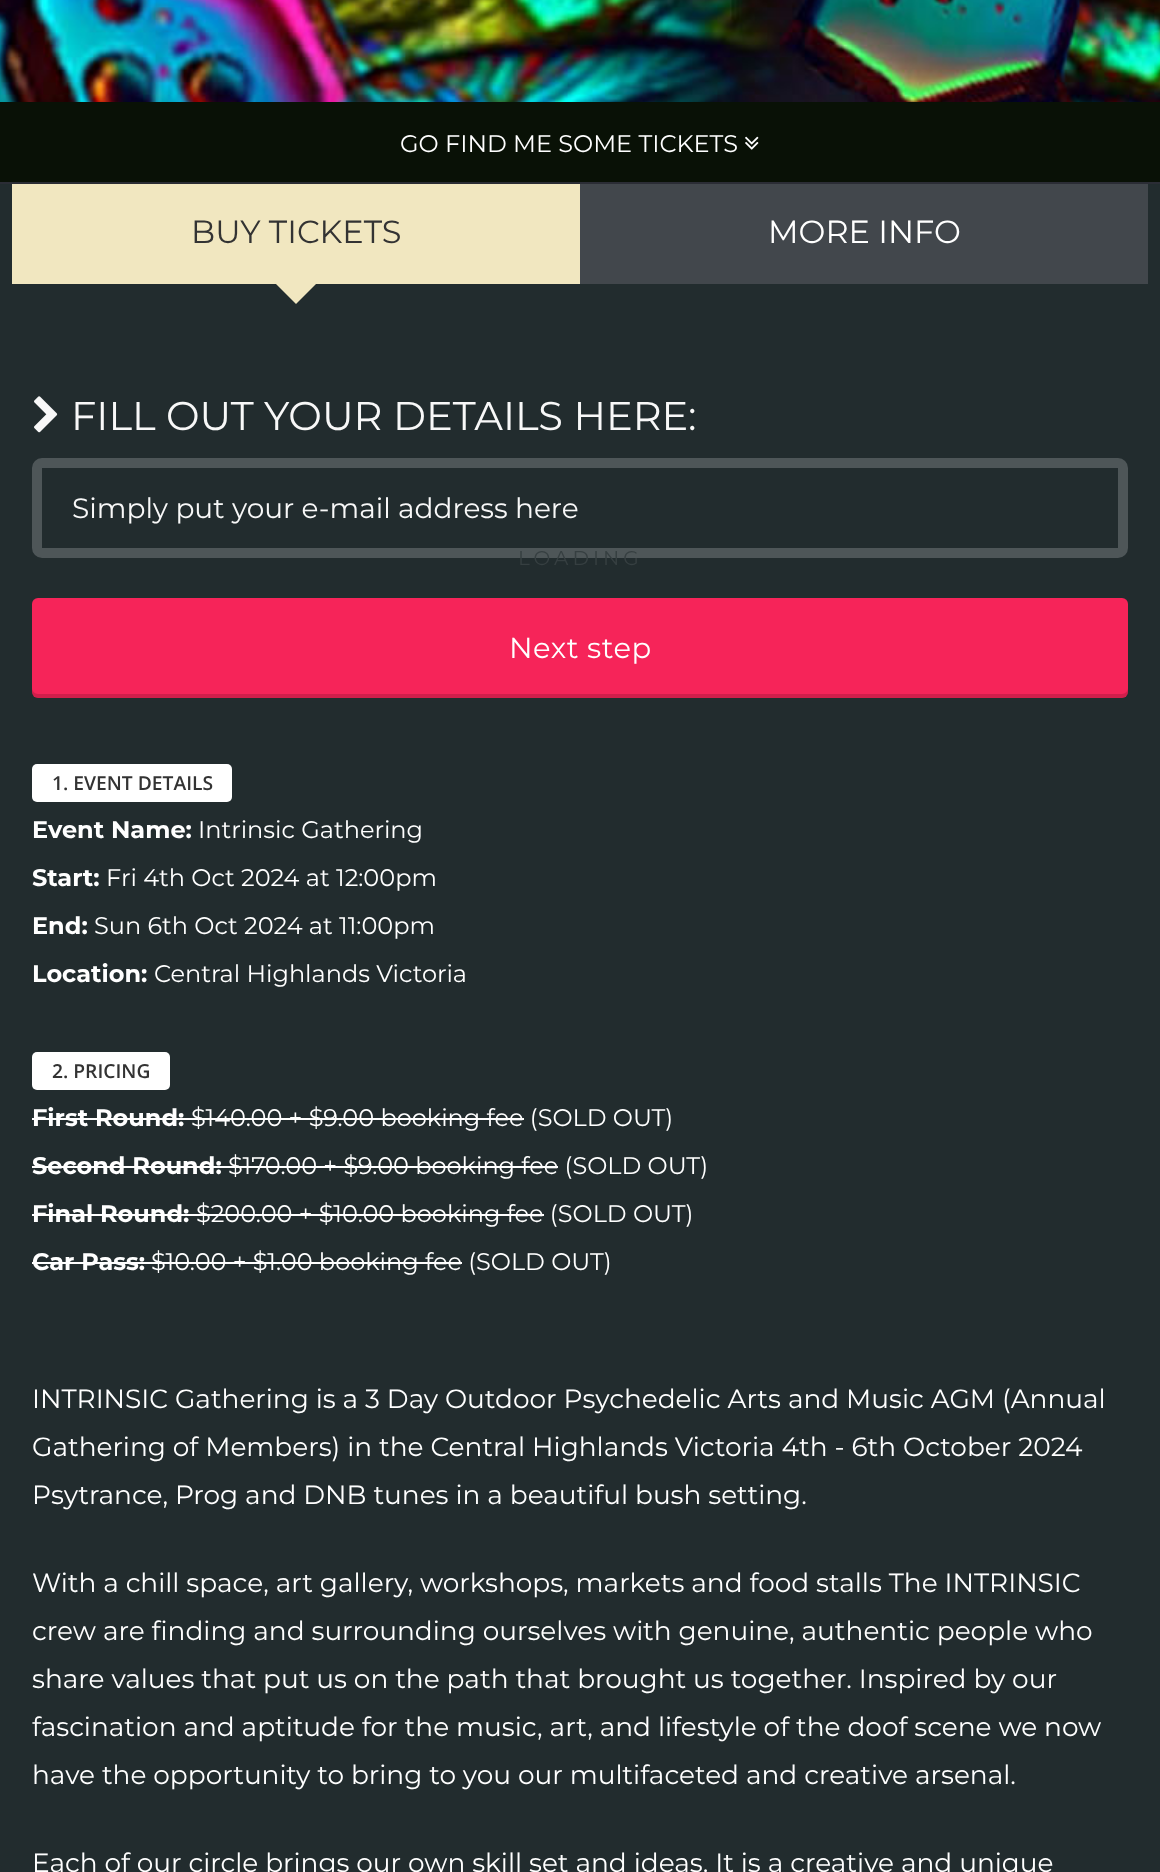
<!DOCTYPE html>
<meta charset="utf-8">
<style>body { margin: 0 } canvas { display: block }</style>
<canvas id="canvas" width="1160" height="1872"></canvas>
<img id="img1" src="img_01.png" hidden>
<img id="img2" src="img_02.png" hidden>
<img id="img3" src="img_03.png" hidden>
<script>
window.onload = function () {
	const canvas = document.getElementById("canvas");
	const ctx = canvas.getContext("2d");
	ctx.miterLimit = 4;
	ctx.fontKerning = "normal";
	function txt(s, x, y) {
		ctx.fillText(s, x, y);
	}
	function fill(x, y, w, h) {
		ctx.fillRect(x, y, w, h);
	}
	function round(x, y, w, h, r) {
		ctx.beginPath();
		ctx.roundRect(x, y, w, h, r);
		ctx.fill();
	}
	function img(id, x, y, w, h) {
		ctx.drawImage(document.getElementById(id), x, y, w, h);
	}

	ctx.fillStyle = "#222C2E";
	fill(0, 0, 1160, 1872);
	img("img1", 0, 0, 1160, 102);
	ctx.fillStyle = "#091106";
	fill(0, 102, 1160, 80);
	img("img2", 745, 136, 14, 14);
	ctx.fillStyle = "#2B2D35";
	fill(0, 182, 1160, 2);
	ctx.fillStyle = "#F1E7C0";
	fill(12, 184, 568, 100);
	ctx.beginPath();
	ctx.moveTo(276, 284);
	ctx.lineTo(316, 284);
	ctx.lineTo(296, 304);
	ctx.closePath();
	ctx.fill();
	ctx.fillStyle = "#42474C";
	fill(580, 184, 568, 100);
	img("img3", 34, 396, 24, 37);
	ctx.beginPath();
	ctx.roundRect(37, 463, 1086, 90, 5);
	ctx.strokeStyle = "#4E5658";
	ctx.lineWidth = 10;
	ctx.stroke();
	ctx.fillStyle = "#F62459";
	round(32, 598, 1096, 100, 6);
	ctx.fillStyle = "rgba(0, 0, 0, 0.15)";
	ctx.beginPath();
	ctx.moveTo(32, 688);
	ctx.lineTo(32, 692);
	ctx.bezierCurveTo(32, 695, 35, 698, 38, 698);
	ctx.lineTo(1122, 698);
	ctx.bezierCurveTo(1125, 698, 1128, 695, 1128, 692);
	ctx.lineTo(1128, 688);
	ctx.bezierCurveTo(1128, 691, 1125, 694, 1122, 694);
	ctx.lineTo(38, 694);
	ctx.bezierCurveTo(35, 694, 32, 691, 32, 688);
	ctx.closePath();
	ctx.fill();
	ctx.fillStyle = "#FFFFFF";
	round(32, 764, 200, 38, 5);
	round(32, 1052, 138, 38, 5);
	fill(32, 1118, 152, 2);
	fill(184, 1118, 340, 2);
	fill(32, 1166, 190, 2);
	fill(222, 1166, 336, 2);
	fill(32, 1214, 158, 2);
	fill(190, 1214, 354, 2);
	fill(32, 1262, 114, 2);
	fill(146, 1262, 316, 2);
	ctx.font = "24px Montserrat";
	txt("GO FIND ME SOME TICKETS", 400, 152);
	ctx.font = "32px Montserrat";
	ctx.fillStyle = "#333333";
	txt("BUY TICKETS", 191, 243);
	ctx.fillStyle = "#FFFFFF";
	txt("MORE INFO", 768, 243);
	ctx.font = "40px Montserrat";
	ctx.fillStyle = "#F8F8F8";
	txt("FILL OUT YOUR DETAILS HERE:", 71, 430);
	ctx.font = "28px Montserrat";
	txt("Simply put your e-mail address here", 72, 518);
	ctx.letterSpacing = "0.5px";
	ctx.font = "29px Montserrat";
	ctx.fillStyle = "#FFFFFF";
	txt("Next step", 509, 658);
	ctx.letterSpacing = "0px";
	ctx.font = "600 19.25px Open Sans";
	ctx.fillStyle = "#333333";
	txt("1. EVENT DETAILS", 52, 790);
	ctx.font = "bold 24px Montserrat";
	ctx.fillStyle = "#FFFFFF";
	txt("Event Name:", 32, 838);
	ctx.font = "24px Montserrat";
	txt("Intrinsic Gathering", 198, 838);
	ctx.font = "bold 24px Montserrat";
	txt("Start:", 32, 886);
	ctx.font = "24px Montserrat";
	txt("Fri 4th Oct 2024 at 12:00pm", 106, 886);
	ctx.font = "bold 24px Montserrat";
	txt("End:", 32, 934);
	ctx.font = "24px Montserrat";
	txt("Sun 6th Oct 2024 at 11:00pm", 94, 934);
	ctx.font = "bold 24px Montserrat";
	txt("Location:", 32, 982);
	ctx.font = "24px Montserrat";
	txt("Central Highlands Victoria", 154, 982);
	ctx.font = "600 19.25px Open Sans";
	ctx.fillStyle = "#333333";
	txt("2. PRICING", 52, 1078);
	ctx.font = "bold 24px Montserrat";
	ctx.fillStyle = "#FFFFFF";
	txt("First Round:", 32, 1126);
	ctx.font = "24px Montserrat";
	txt("$140.00 + $9.00 booking fee (SOLD OUT)", 191, 1126);
	ctx.font = "bold 24px Montserrat";
	txt("Second Round:", 32, 1174);
	ctx.font = "24px Montserrat";
	txt("$170.00 + $9.00 booking fee (SOLD OUT)", 228, 1174);
	ctx.font = "bold 24px Montserrat";
	txt("Final Round:", 32, 1222);
	ctx.font = "24px Montserrat";
	txt("$200.00 + $10.00 booking fee (SOLD OUT)", 196, 1222);
	ctx.font = "bold 24px Montserrat";
	txt("Car Pass:", 32, 1270);
	ctx.font = "24px Montserrat";
	txt("$10.00 + $1.00 booking fee (SOLD OUT)", 151, 1270);
	ctx.font = "26.4px Montserrat";
	txt("INTRINSIC Gathering is a 3 Day Outdoor Psychedelic Arts and Music AGM (Annual", 32, 1408);
	txt("Gathering of Members) in the Central Highlands Victoria 4th - 6th October 2024", 32, 1456);
	txt("Psytrance, Prog and DNB tunes in a beautiful bush setting.", 32, 1504);
	txt("With a chill space, art gallery, workshops, markets and food stalls The INTRINSIC", 32, 1592);
	txt("crew are finding and surrounding ourselves with genuine, authentic people who", 32, 1640);
	txt("share values that put us on the path that brought us together. Inspired by our", 32, 1688);
	txt("fascination and aptitude for the music, art, and lifestyle of the doof scene we now", 32, 1736);
	txt("have the opportunity to bring to you our multifaceted and creative arsenal.", 32, 1784);
	txt("Each of our circle brings our own skill set and ideas. It is a creative and unique", 32, 1872);
	ctx.letterSpacing = "4px";
	ctx.font = "20px Montserrat";
	ctx.fillStyle = "#363F41";
	txt("LOADING", 518, 565);
};
</script>
